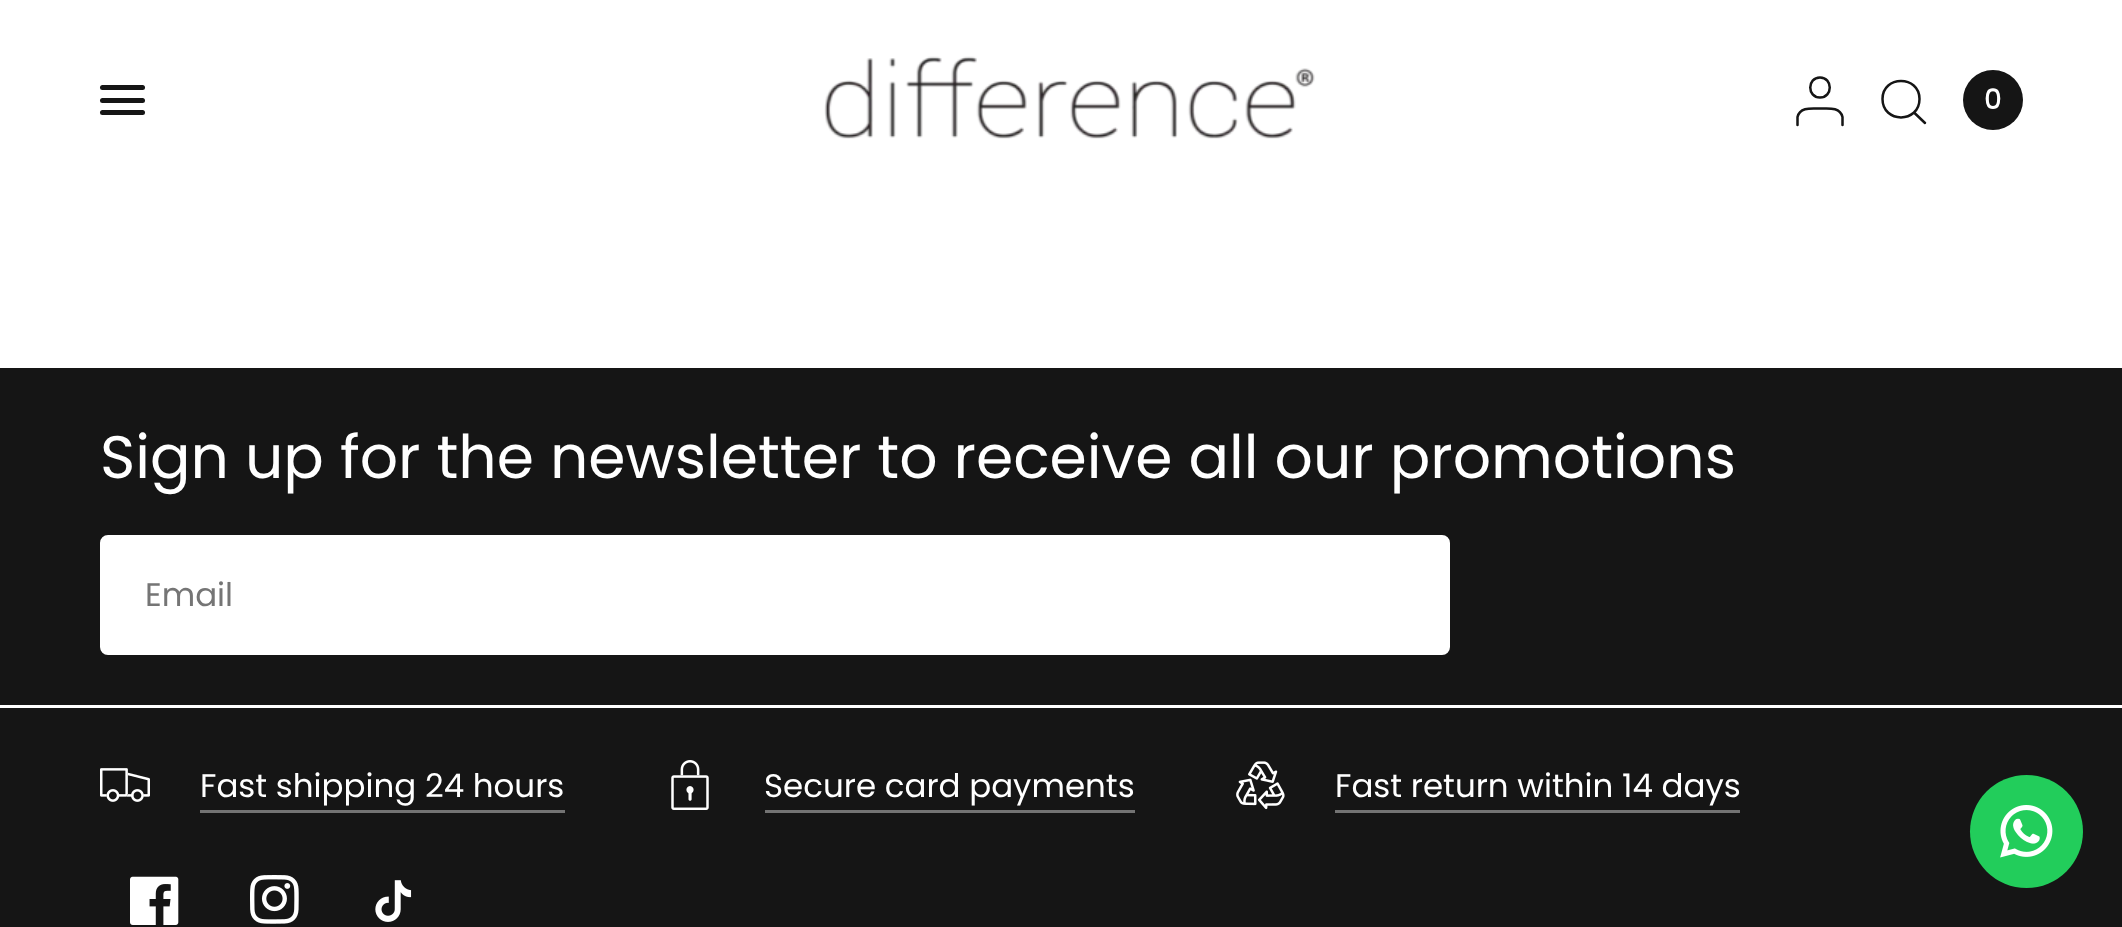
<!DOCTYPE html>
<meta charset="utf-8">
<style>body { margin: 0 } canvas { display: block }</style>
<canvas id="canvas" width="2122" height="927"></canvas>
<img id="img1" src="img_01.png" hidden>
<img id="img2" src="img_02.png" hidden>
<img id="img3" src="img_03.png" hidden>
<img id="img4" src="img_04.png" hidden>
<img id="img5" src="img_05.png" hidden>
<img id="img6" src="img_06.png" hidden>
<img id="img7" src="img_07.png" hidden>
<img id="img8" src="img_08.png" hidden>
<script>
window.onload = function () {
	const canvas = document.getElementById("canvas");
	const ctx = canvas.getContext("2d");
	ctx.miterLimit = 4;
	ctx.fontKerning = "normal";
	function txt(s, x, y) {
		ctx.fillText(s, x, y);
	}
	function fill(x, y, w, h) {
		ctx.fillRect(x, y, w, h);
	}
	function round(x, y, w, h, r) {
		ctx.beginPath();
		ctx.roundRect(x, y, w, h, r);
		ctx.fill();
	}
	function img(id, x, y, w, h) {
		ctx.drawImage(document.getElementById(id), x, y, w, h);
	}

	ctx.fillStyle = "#FFFFFF";
	fill(0, 0, 2122, 927);
	ctx.fillStyle = "#151515";
	round(100, 85, 45, 5, 2.5);
	round(100, 98, 45, 5, 2.5);
	round(100, 110, 45, 5, 2.5);
	img("img1", 824, 56, 491, 83);
	ctx.beginPath();
	ctx.moveTo(1842.5, 125);
	ctx.lineTo(1842.5, 117);
	ctx.bezierCurveTo(1840, 106.5, 1828, 108.5, 1820, 108.5);
	ctx.bezierCurveTo(1812, 108.5, 1800, 106.5, 1797.5, 117);
	ctx.lineTo(1797.5, 125);
	ctx.moveTo(1820, 97.5);
	ctx.bezierCurveTo(1833, 97.5, 1833, 77.5, 1820, 77.5);
	ctx.bezierCurveTo(1807, 77.5, 1807, 97.5, 1820, 97.5);
	ctx.closePath();
	ctx.strokeStyle = "#151515";
	ctx.lineWidth = 2.5;
	ctx.lineCap = "round";
	ctx.lineJoin = "round";
	ctx.stroke();
	ctx.beginPath();
	ctx.moveTo(1914, 112.5);
	ctx.lineTo(1925, 123);
	ctx.moveTo(1919.5, 99);
	ctx.bezierCurveTo(1919.5, 123.5, 1882.5, 123.5, 1882.5, 99);
	ctx.bezierCurveTo(1882.5, 75, 1919.5, 75, 1919.5, 99);
	ctx.closePath();
	ctx.stroke();
	ctx.beginPath();
	ctx.arc(1993, 100, 30, 0, Math.PI * 2);
	ctx.fill();
	fill(0, 368, 2122, 337);
	ctx.fillStyle = "#FFFFFF";
	ctx.beginPath();
	ctx.roundRect(101.5, 536.5, 1347, 117, 6.5);
	ctx.fill();
	ctx.strokeStyle = "#FFFFFF";
	ctx.lineWidth = 3;
	ctx.lineJoin = "miter";
	ctx.stroke();
	ctx.fillStyle = "#151515";
	fill(0, 708, 2122, 219);
	img("img2", 100, 768, 50, 34);
	ctx.fillStyle = "#737373";
	fill(200, 810, 365, 3);
	img("img3", 671, 760, 38, 50);
	fill(765, 810, 370, 3);
	img("img4", 1236, 761, 49, 49);
	fill(1335, 810, 405, 3);
	img("img5", 130, 876, 49, 49);
	img("img6", 250, 875, 49, 49);
	img("img7", 375, 880, 37, 42);
	ctx.fillStyle = "#22CD5B";
	ctx.beginPath();
	ctx.arc(2026.5, 831.5, 56.5, 0, Math.PI * 2);
	ctx.fill();
	img("img8", 2000, 805, 53, 53);
	ctx.font = "500 28px Poppins";
	ctx.fillStyle = "#FFFFFF";
	txt("0", 1984, 109);
	ctx.font = "60px Poppins";
	txt("Sign up for the newsletter to receive all our promotions", 100, 478);
	ctx.font = "32.5px Poppins";
	ctx.fillStyle = "#757575";
	txt("Email", 145, 606);
	ctx.fillStyle = "#FFFFFF";
	txt("Fast shipping 24 hours", 200, 797);
	txt("Secure card payments", 764, 797);
	txt("Fast return within 14 days", 1335, 797);
};
</script>
